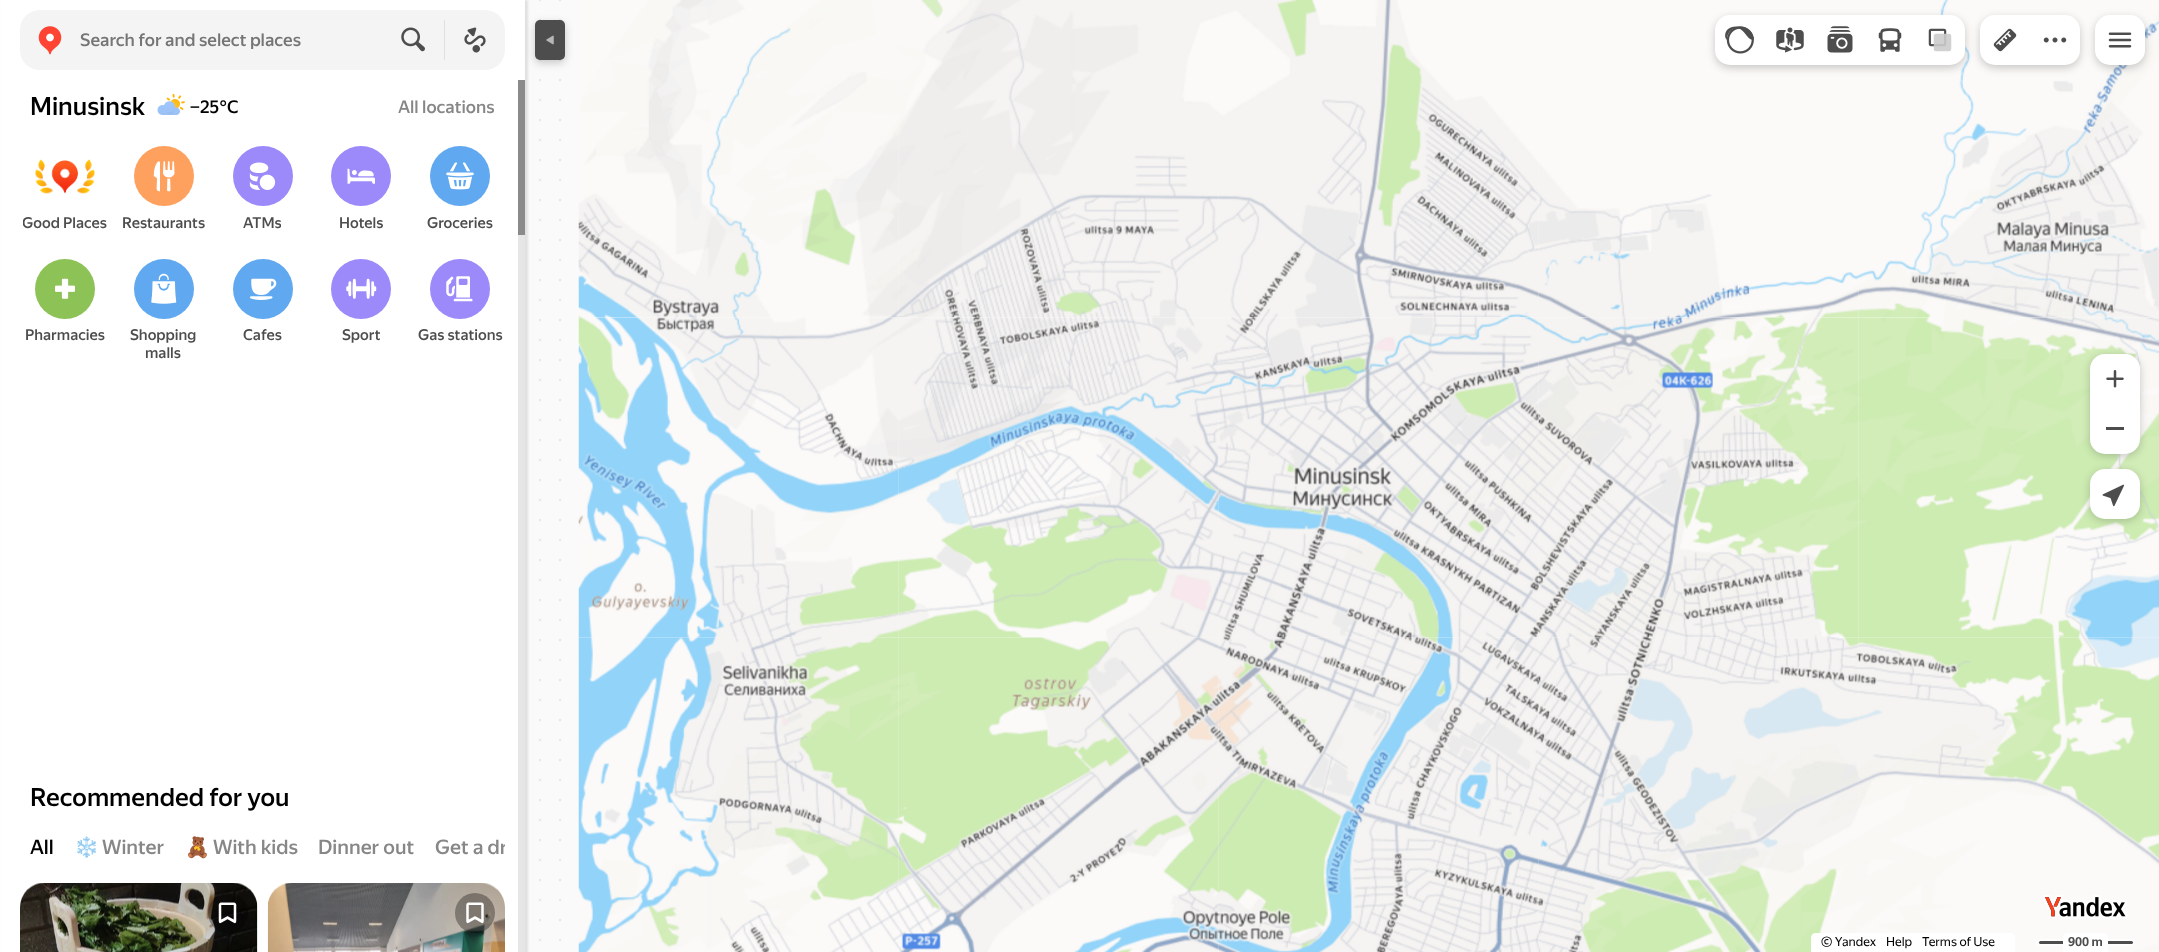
<!DOCTYPE html>
<meta charset="utf-8">
<style>body { margin: 0 } canvas { display: block }</style>
<canvas id="canvas" width="2159" height="952"></canvas>
<img id="img1" src="img_01.png" hidden>
<img id="img2" src="img_03.png" hidden>
<img id="img3" src="img_07.png" hidden>
<img id="img4" src="img_04.png" hidden>
<img id="img5" src="img_08.png" hidden>
<img id="img6" src="img_02.png" hidden>
<img id="img7" src="img_05.png" hidden>
<img id="img8" src="img_09.png" hidden>
<img id="img9" src="img_10.png" hidden>
<img id="img10" src="img_13.png" hidden>
<img id="img11" src="img_14.png" hidden>
<img id="img12" src="img_15.png" hidden>
<img id="img13" src="img_11.png" hidden>
<img id="img14" src="img_06.png" hidden>
<img id="img15" src="img_12.png" hidden>
<img id="img16" src="img_16.png" hidden>
<img id="img17" src="img_17.png" hidden>
<img id="img18" src="img_18.png" hidden>
<img id="img19" src="img_19.png" hidden>
<img id="img20" src="img_20.png" hidden>
<img id="img21" src="img_21.png" hidden>
<img id="img22" src="img_22.png" hidden>
<img id="img23" src="img_23.png" hidden>
<img id="img24" src="img_24.png" hidden>
<img id="img25" src="img_25.png" hidden>
<img id="img26" src="img_26.png" hidden>
<img id="img27" src="img_27.png" hidden>
<img id="img28" src="img_28.png" hidden>
<img id="img29" src="img_29.png" hidden>
<img id="img30" src="img_30.png" hidden>
<img id="img31" src="img_31.png" hidden>
<img id="img32" src="img_32.png" hidden>
<img id="img33" src="img_33.png" hidden>
<img id="img34" src="img_34.png" hidden>
<img id="img35" src="img_35.png" hidden>
<img id="img36" src="img_36.png" hidden>
<img id="img37" src="img_37.png" hidden>
<img id="img38" src="img_38.png" hidden>
<img id="img39" src="img_39.png" hidden>
<img id="img40" src="img_40.png" hidden>
<img id="img41" src="img_41.png" hidden>
<img id="img42" src="img_42.png" hidden>
<img id="img43" src="img_43.png" hidden>
<img id="img44" src="img_44.png" hidden>
<img id="img45" src="img_45.png" hidden>
<img id="img46" src="img_46.png" hidden>
<script>
window.onload = function () {
	const canvas = document.getElementById("canvas");
	const ctx = canvas.getContext("2d");
	ctx.miterLimit = 4;
	ctx.fontKerning = "normal";
	function txt(s, x, y) {
		ctx.fillText(s, x, y);
	}
	function fill(x, y, w, h) {
		ctx.fillRect(x, y, w, h);
	}
	function round(x, y, w, h, r) {
		ctx.beginPath();
		ctx.roundRect(x, y, w, h, r);
		ctx.fill();
	}
	function img(id, x, y, w, h) {
		ctx.drawImage(document.getElementById(id), x, y, w, h);
	}

	ctx.fillStyle = "#FFFFFF";
	fill(0, 0, 2159, 952);
	img("img1", 525, 0, 1634, 952);
	img("img2", 898, 0, 321, 318);
	img("img3", 578, 317, 321, 321);
	img("img4", 1218, 0, 321, 318);
	img("img5", 898, 317, 321, 321);
	img("img6", 578, 0, 321, 318);
	img("img7", 1538, 0, 321, 318);
	img("img8", 1218, 317, 321, 321);
	img("img9", 1538, 317, 321, 321);
	img("img10", 898, 637, 321, 315);
	img("img11", 1218, 637, 321, 315);
	img("img12", 1538, 637, 321, 315);
	img("img13", 1858, 317, 301, 321);
	img("img14", 1858, 0, 301, 318);
	img("img15", 578, 637, 321, 315);
	img("img16", 1858, 637, 301, 315);
	ctx.fillStyle = "rgba(0, 0, 0, 0.1)";
	ctx.filter = "blur(1px)";
	ctx.beginPath();
	ctx.rect(3, 0, 525, 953);
	ctx.fill();
	ctx.filter = "none";
	ctx.fillStyle = "rgba(0, 0, 0, 0.2)";
	ctx.filter = "blur(4px)";
	ctx.beginPath();
	ctx.roundRect(535, 23, 30, 40, 5);
	ctx.fill();
	ctx.filter = "none";
	ctx.fillStyle = "#FFFFFF";
	fill(2, 0, 523, 952);
	ctx.fillStyle = "#F4F4F4";
	round(20, 10, 485, 60, 20);
	img("img17", 38, 26, 24, 29);
	img("img18", 401, 27, 24, 25);
	ctx.fillStyle = "#E0E0E0";
	fill(444, 20, 1, 40);
	img("img19", 464, 27, 22, 26);
	ctx.fillStyle = "rgba(0, 0, 0, 0.2)";
	ctx.filter = "blur(4px)";
	ctx.beginPath();
	ctx.roundRect(1715, 18, 250, 50, 15);
	ctx.fill();
	ctx.filter = "none";
	ctx.fillStyle = "#FFFFFF";
	ctx.beginPath();
	ctx.roundRect(1715, 15, 50, 50, [15, 0, 0, 15]);
	ctx.fill();
	img("img20", 1725, 26, 29, 28);
	fill(1765, 15, 150, 50);
	img("img21", 1776, 27, 28, 26);
	ctx.beginPath();
	ctx.roundRect(1915, 15, 50, 50, [0, 15, 15, 0]);
	ctx.fill();
	img("img22", 1928, 28, 24, 24);
	img("img23", 1827, 26, 26, 27);
	img("img24", 1878, 28, 24, 24);
	ctx.fillStyle = "rgba(0, 0, 0, 0.2)";
	ctx.filter = "blur(4px)";
	ctx.beginPath();
	ctx.roundRect(1980, 18, 100, 50, 15);
	ctx.fill();
	ctx.filter = "none";
	ctx.fillStyle = "#FFFFFF";
	ctx.beginPath();
	ctx.roundRect(1980, 15, 50, 50, [15, 0, 0, 15]);
	ctx.fill();
	img("img25", 1993, 28, 24, 24);
	ctx.beginPath();
	ctx.roundRect(2030, 15, 50, 50, [0, 15, 15, 0]);
	ctx.fill();
	img("img26", 2043, 37, 24, 6);
	ctx.fillStyle = "rgba(0, 0, 0, 0.2)";
	ctx.filter = "blur(4px)";
	ctx.beginPath();
	ctx.roundRect(2095, 18, 50, 50, 15);
	ctx.fill();
	ctx.filter = "none";
	ctx.fillStyle = "#FFFFFF";
	round(2095, 15, 50, 50, 15);
	img("img27", 2108, 32, 24, 16);
	ctx.fillStyle = "rgba(0, 0, 0, 0.2)";
	ctx.filter = "blur(4px)";
	ctx.beginPath();
	ctx.roundRect(2090, 356, 50, 100, 15);
	ctx.fill();
	ctx.filter = "none";
	ctx.fillStyle = "#FFFFFF";
	ctx.beginPath();
	ctx.roundRect(2090, 354, 50, 50, [15, 15, 0, 0]);
	ctx.fill();
	img("img28", 2106, 370, 18, 18);
	ctx.beginPath();
	ctx.roundRect(2090, 404, 50, 50, [0, 0, 15, 15]);
	ctx.fill();
	ctx.fillStyle = "#4D4D4D";
	fill(2106, 427, 18, 3);
	ctx.fillStyle = "rgba(0, 0, 0, 0.2)";
	ctx.filter = "blur(4px)";
	ctx.beginPath();
	ctx.roundRect(2090, 471, 50, 50, 15);
	ctx.fill();
	ctx.filter = "none";
	ctx.fillStyle = "#FFFFFF";
	round(2090, 469, 50, 50, 15);
	img("img29", 2102, 484, 22, 23);
	ctx.fillStyle = "#4D4D4D";
	round(535, 20, 30, 40, 5);
	img("img30", 546, 35, 8, 10);
	img("img31", 157, 93, 28, 22);
	img("img32", 35, 159, 60, 35);
	ctx.fillStyle = "#FFA15E";
	ctx.beginPath();
	ctx.arc(164, 176, 30, 0, Math.PI * 2);
	ctx.fill();
	img("img33", 153, 161, 22, 31);
	ctx.fillStyle = "#9C89FA";
	ctx.beginPath();
	ctx.arc(263, 176, 30, 0, Math.PI * 2);
	ctx.fill();
	img("img34", 249, 162, 27, 28);
	ctx.beginPath();
	ctx.arc(361, 176, 30, 0, Math.PI * 2);
	ctx.fill();
	img("img35", 347, 168, 28, 16);
	ctx.fillStyle = "#60A8F0";
	ctx.beginPath();
	ctx.arc(460, 176, 30, 0, Math.PI * 2);
	ctx.fill();
	img("img36", 446, 162, 28, 28);
	ctx.fillStyle = "#8DC257";
	ctx.beginPath();
	ctx.arc(65, 289, 30, 0, Math.PI * 2);
	ctx.fill();
	img("img37", 55, 278, 20, 21);
	ctx.fillStyle = "#60A8F0";
	ctx.beginPath();
	ctx.arc(164, 289, 30, 0, Math.PI * 2);
	ctx.fill();
	img("img38", 151, 273, 26, 31);
	ctx.beginPath();
	ctx.arc(263, 289, 30, 0, Math.PI * 2);
	ctx.fill();
	img("img39", 250, 278, 27, 22);
	ctx.fillStyle = "#9C89FA";
	ctx.beginPath();
	ctx.arc(361, 289, 30, 0, Math.PI * 2);
	ctx.fill();
	img("img40", 346, 278, 31, 21);
	ctx.beginPath();
	ctx.arc(460, 289, 30, 0, Math.PI * 2);
	ctx.fill();
	img("img41", 446, 276, 27, 26);
	ctx.fillStyle = "#F4F4F4";
	ctx.beginPath();
	ctx.moveTo(45, 883);
	ctx.lineTo(233, 883);
	ctx.bezierCurveTo(247, 883, 258, 894, 258, 908);
	ctx.lineTo(258, 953);
	ctx.lineTo(20, 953);
	ctx.lineTo(20, 908);
	ctx.bezierCurveTo(20, 894, 31, 883, 45, 883);
	ctx.closePath();
	ctx.fill();
	img("img42", 20, 883, 238, 69);
	ctx.fillStyle = "rgba(0, 0, 0, 0.32)";
	ctx.beginPath();
	ctx.arc(228, 913, 20, 0, Math.PI * 2);
	ctx.fill();
	img("img43", 218, 902, 19, 22);
	img("img44", 267, 883, 238, 69);
	ctx.beginPath();
	ctx.arc(475, 913, 20, 0, Math.PI * 2);
	ctx.fill();
	img("img45", 466, 902, 18, 22);
	ctx.fillStyle = "#8A8A8A";
	fill(518, 80, 7, 155);
	ctx.fillStyle = "#E6E6E6";
	fill(518, 235, 7, 717);
	img("img46", 2043, 895, 85, 24);
	ctx.fillStyle = "#FFFFFF";
	ctx.beginPath();
	ctx.moveTo(1816, 933);
	ctx.lineTo(2010, 933);
	ctx.bezierCurveTo(2013, 933, 2015, 935, 2015, 938);
	ctx.lineTo(2015, 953);
	ctx.lineTo(1811, 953);
	ctx.lineTo(1811, 938);
	ctx.bezierCurveTo(1811, 935, 1813, 933, 1816, 933);
	ctx.closePath();
	ctx.fill();
	ctx.fillStyle = "#FDFDFD";
	round(2036, 939, 99, 7, 3.5);
	ctx.fillStyle = "#4D4D4D";
	round(2039, 941, 94, 3, 1.5);
	ctx.fillStyle = "#FFFFFF";
	ctx.beginPath();
	ctx.moveTo(2068, 933);
	ctx.lineTo(2103, 933);
	ctx.bezierCurveTo(2106, 933, 2108, 935, 2108, 938);
	ctx.lineTo(2108, 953);
	ctx.lineTo(2063, 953);
	ctx.lineTo(2063, 938);
	ctx.bezierCurveTo(2063, 935, 2065, 933, 2068, 933);
	ctx.closePath();
	ctx.fill();
	ctx.font = "500 17.5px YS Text";
	ctx.fillStyle = "#757575";
	txt("Search for and select places", 80, 46);
	ctx.font = "500 25px YS Text";
	ctx.fillStyle = "#000000";
	txt("Minusinsk", 30, 115);
	ctx.font = "500 17.5px YS Text";
	txt("−25°C", 190, 113);
	ctx.fillStyle = "#878787";
	txt("All locations", 398, 113);
	ctx.save();
	ctx.beginPath();
	ctx.rect(23, 214, 85, 17);
	ctx.clip();
	ctx.font = "500 15px YS Text";
	ctx.fillStyle = "#4D4D4D";
	txt("Good", 22, 228);
	ctx.restore();
	ctx.font = "500 15px YS Text";
	ctx.fillStyle = "#4D4D4D";
	txt("Places", 63, 228);
	txt("Restaurants", 122, 228);
	ctx.save();
	ctx.beginPath();
	ctx.rect(243, 214, 38, 17);
	ctx.clip();
	txt("ATMs", 243, 228);
	ctx.restore();
	txt("Hotels", 339, 228);
	txt("Groceries", 427, 228);
	txt("Pharmacies", 25, 340);
	txt("Shopping", 130, 340);
	txt("malls", 145, 358);
	txt("Cafes", 243, 340);
	txt("Sport", 342, 340);
	txt("Gas stations", 418, 340);
	ctx.font = "500 25px YS Text";
	ctx.fillStyle = "#000000";
	txt("Recommended for you", 30, 806);
	ctx.font = "500 20px YS Text";
	txt("All", 30, 854);
	ctx.font = "20px Noto Color Emoji";
	ctx.fillStyle = "#878787";
	txt("❄️", 74, 854);
	ctx.font = "500 20px YS Text";
	txt("Winter", 102, 854);
	ctx.font = "20px Noto Color Emoji";
	txt("🧸", 185, 854);
	ctx.font = "500 20px YS Text";
	txt("With kids", 213, 854);
	txt("Dinner out", 318, 854);
	ctx.save();
	ctx.beginPath();
	ctx.rect(20, 823, 485, 50);
	ctx.clip();
	txt("Get a dr", 435, 854);
	ctx.restore();
	ctx.font = "12.5px YS Text";
	ctx.fillStyle = "#000000";
	txt("© Yandex", 1821, 946);
	txt("Help", 1886, 946);
	txt("Terms of Use", 1922, 946);
	ctx.font = "bold 12.5px YS Text";
	ctx.fillStyle = "#4D4D4D";
	txt("900 m", 2068, 946);
};
</script>
